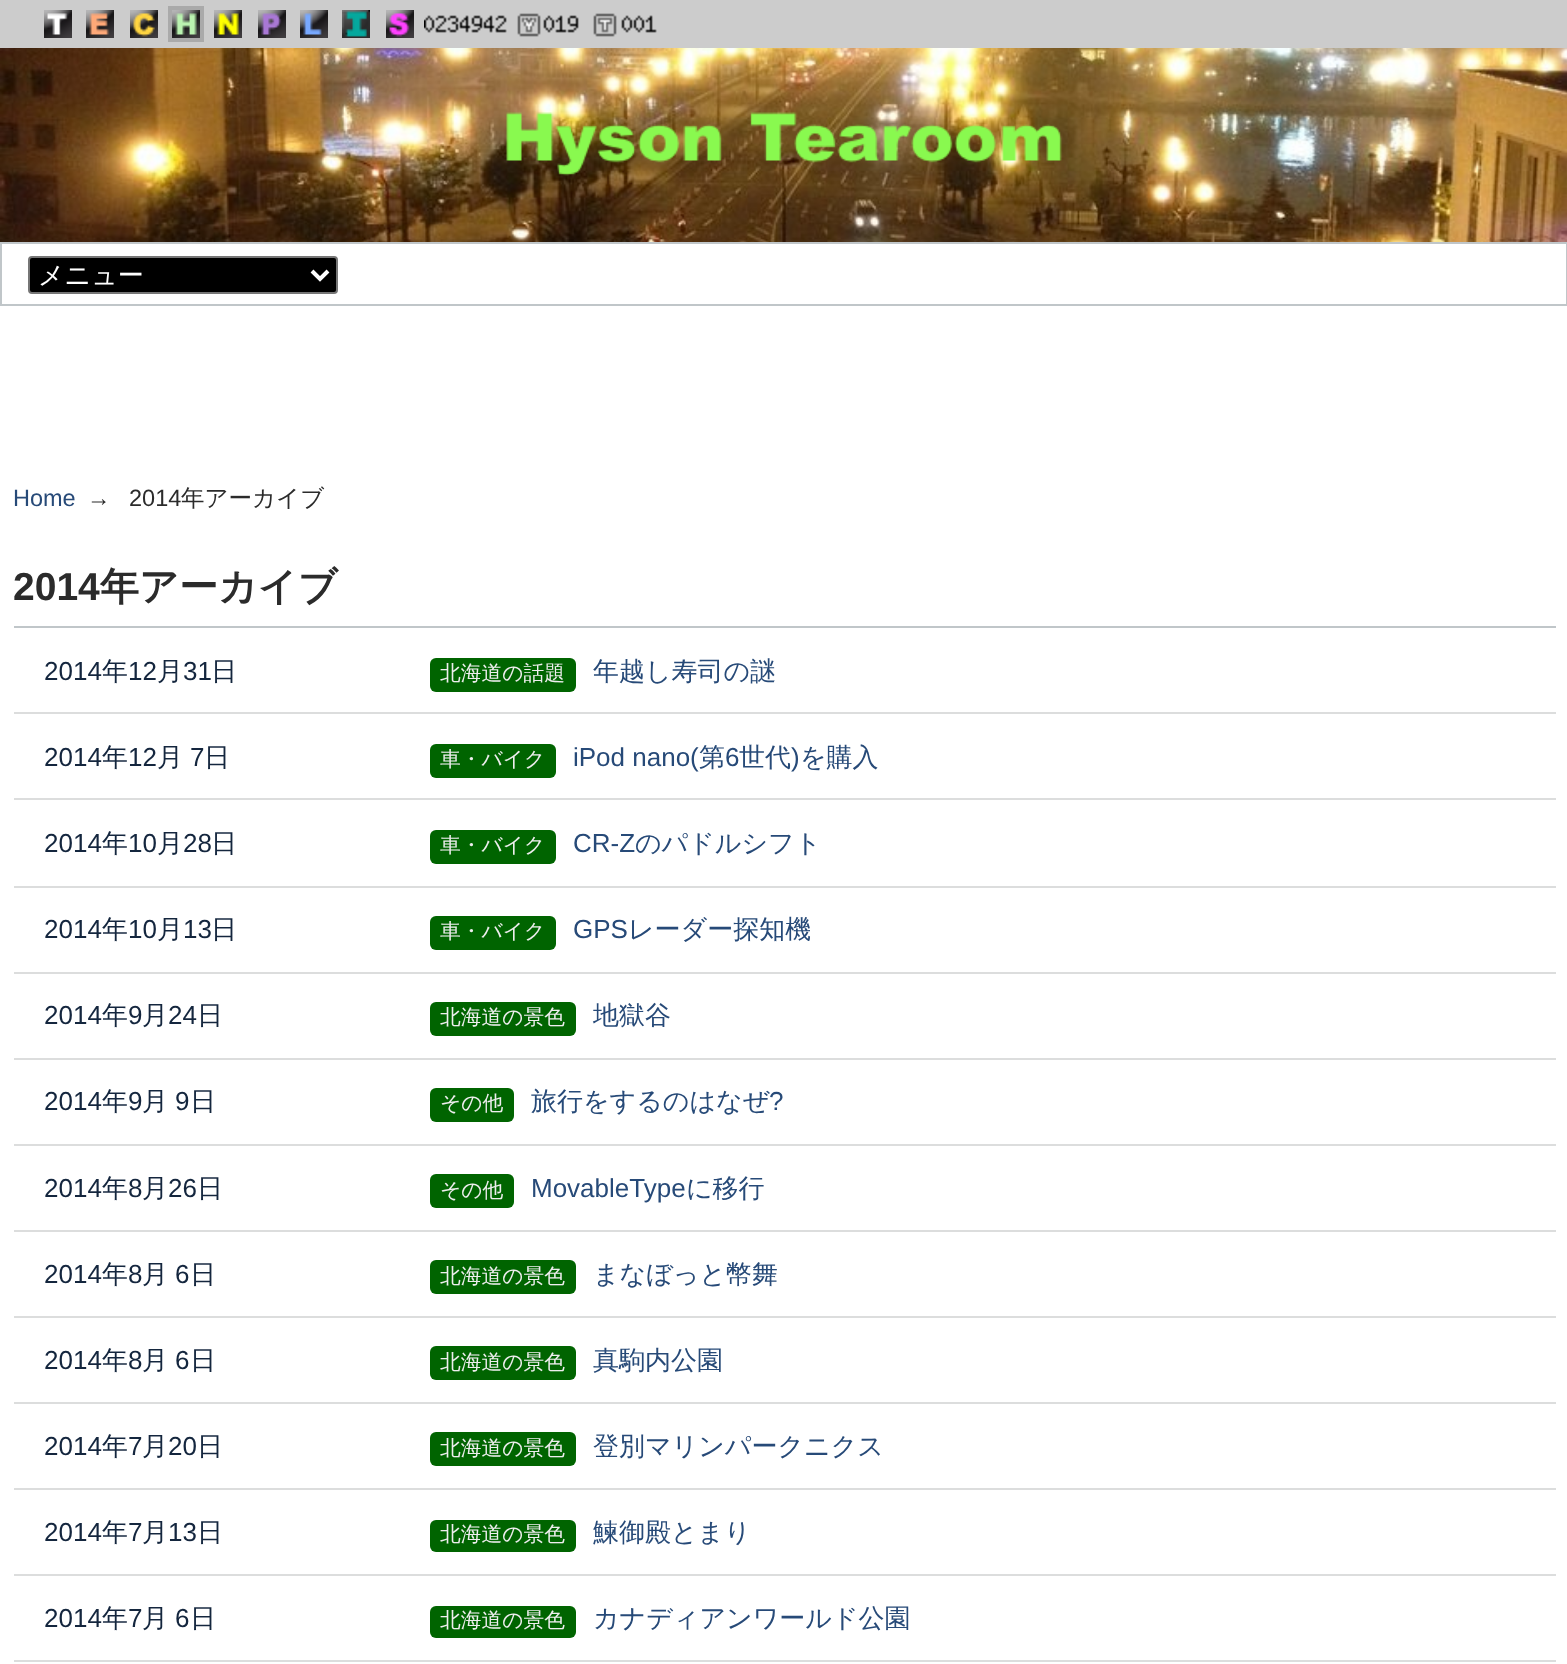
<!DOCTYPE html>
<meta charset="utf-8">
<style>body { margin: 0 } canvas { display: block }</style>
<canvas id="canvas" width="1567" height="1664"></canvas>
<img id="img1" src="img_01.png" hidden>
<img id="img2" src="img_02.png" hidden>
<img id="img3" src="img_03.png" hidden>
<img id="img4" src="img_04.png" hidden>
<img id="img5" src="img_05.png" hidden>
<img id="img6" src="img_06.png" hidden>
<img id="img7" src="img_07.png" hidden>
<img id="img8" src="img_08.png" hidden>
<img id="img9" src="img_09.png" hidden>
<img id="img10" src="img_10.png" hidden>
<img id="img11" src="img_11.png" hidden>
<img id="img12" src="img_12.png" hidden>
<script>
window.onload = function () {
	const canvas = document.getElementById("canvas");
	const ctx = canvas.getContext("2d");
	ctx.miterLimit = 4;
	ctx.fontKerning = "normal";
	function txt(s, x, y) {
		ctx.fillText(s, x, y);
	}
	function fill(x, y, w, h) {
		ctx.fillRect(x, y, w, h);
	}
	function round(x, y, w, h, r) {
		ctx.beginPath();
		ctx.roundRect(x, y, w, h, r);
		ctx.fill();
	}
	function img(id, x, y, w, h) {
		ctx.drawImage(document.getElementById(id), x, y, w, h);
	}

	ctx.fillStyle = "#FFFFFF";
	fill(0, 0, 1567, 1664);
	ctx.fillStyle = "#CCCCCC";
	fill(0, 0, 1567, 48);
	img("img1", 44, 10, 28, 28);
	img("img2", 86, 10, 28, 28);
	img("img3", 130, 10, 28, 28);
	ctx.fillStyle = "#AAAAAA";
	fill(168, 6, 36, 36);
	img("img4", 172, 10, 28, 28);
	img("img5", 214, 10, 28, 28);
	img("img6", 258, 10, 28, 28);
	img("img7", 300, 10, 28, 28);
	img("img8", 342, 10, 28, 28);
	img("img9", 386, 10, 28, 28);
	img("img10", 424, 13, 233, 24);
	img("img11", 0, 48, 1567, 194);
	img("img12", 506, 112, 556, 64);
	ctx.strokeStyle = "#C0C6C9";
	ctx.lineWidth = 2;
	ctx.strokeRect(1, 243, 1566, 62);
	ctx.fillStyle = "#000000";
	ctx.beginPath();
	ctx.roundRect(29, 257, 308, 36, 3);
	ctx.fill();
	ctx.strokeStyle = "#767676";
	ctx.stroke();
	ctx.beginPath();
	ctx.moveTo(312, 271);
	ctx.lineTo(320, 279);
	ctx.lineTo(328, 271);
	ctx.strokeStyle = "#FFFFFF";
	ctx.lineWidth = 4;
	ctx.stroke();
	ctx.fillStyle = "#C0C6C9";
	fill(14, 626, 1542, 2);
	ctx.fillStyle = "#DCDDDD";
	fill(14, 712, 1542, 2);
	ctx.fillStyle = "#006400";
	round(430, 658, 146, 34, 6);
	ctx.fillStyle = "#DCDDDD";
	fill(14, 798, 1542, 2);
	ctx.fillStyle = "#006400";
	round(430, 744, 126, 34, 6);
	ctx.fillStyle = "#DCDDDD";
	fill(14, 886, 1542, 2);
	ctx.fillStyle = "#006400";
	round(430, 830, 126, 34, 6);
	ctx.fillStyle = "#DCDDDD";
	fill(14, 972, 1542, 2);
	ctx.fillStyle = "#006400";
	round(430, 916, 126, 34, 6);
	ctx.fillStyle = "#DCDDDD";
	fill(14, 1058, 1542, 2);
	ctx.fillStyle = "#006400";
	round(430, 1002, 146, 34, 6);
	ctx.fillStyle = "#DCDDDD";
	fill(14, 1144, 1542, 2);
	ctx.fillStyle = "#006400";
	round(430, 1088, 84, 34, 6);
	ctx.fillStyle = "#DCDDDD";
	fill(14, 1230, 1542, 2);
	ctx.fillStyle = "#006400";
	round(430, 1174, 84, 34, 6);
	ctx.fillStyle = "#DCDDDD";
	fill(14, 1316, 1542, 2);
	ctx.fillStyle = "#006400";
	round(430, 1260, 146, 34, 6);
	ctx.fillStyle = "#DCDDDD";
	fill(14, 1402, 1542, 2);
	ctx.fillStyle = "#006400";
	round(430, 1346, 146, 34, 6);
	ctx.fillStyle = "#DCDDDD";
	fill(14, 1488, 1542, 2);
	ctx.fillStyle = "#006400";
	round(430, 1432, 146, 34, 6);
	ctx.fillStyle = "#DCDDDD";
	fill(14, 1574, 1542, 2);
	ctx.fillStyle = "#006400";
	round(430, 1520, 146, 32, 6);
	ctx.fillStyle = "#DCDDDD";
	fill(14, 1660, 1542, 2);
	ctx.fillStyle = "#006400";
	round(430, 1606, 146, 32, 6);
	ctx.font = "500 26px WenQuanYi Zen Hei";
	ctx.fillStyle = "#FFFFFF";
	txt("メニュー", 38, 284);
	ctx.font = "23.5px Liberation Sans";
	ctx.fillStyle = "#274A78";
	txt("Home", 13, 506);
	ctx.fillStyle = "#2B2B2B";
	txt("→", 87, 506);
	txt("2014", 129, 506);
	ctx.font = "500 23.5px WenQuanYi Zen Hei";
	txt("年アーカイブ", 181, 506);
	ctx.font = "bold 39px Liberation Sans";
	txt("2014", 13, 600);
	ctx.font = "bold 39px WenQuanYi Zen Hei";
	txt("年アーカイブ", 100, 600);
	ctx.font = "26px Liberation Sans";
	ctx.fillStyle = "#14263E";
	txt("2014", 44, 680);
	ctx.font = "500 26px WenQuanYi Zen Hei";
	txt("年", 102, 680);
	ctx.font = "26px Liberation Sans";
	txt("12", 128, 680);
	ctx.font = "500 26px WenQuanYi Zen Hei";
	txt("月", 157, 680);
	ctx.font = "26px Liberation Sans";
	txt("31", 183, 680);
	ctx.font = "500 26px WenQuanYi Zen Hei";
	txt("日", 211, 680);
	ctx.font = "500 20.75px WenQuanYi Zen Hei";
	ctx.fillStyle = "#EEEEEE";
	txt("北海道の話題", 440, 680);
	ctx.font = "500 26px WenQuanYi Zen Hei";
	ctx.fillStyle = "#274A78";
	txt("年越し寿司の謎", 593, 680);
	ctx.font = "26px Liberation Sans";
	ctx.fillStyle = "#14263E";
	txt("2014", 44, 766);
	ctx.font = "500 26px WenQuanYi Zen Hei";
	txt("年", 102, 766);
	ctx.font = "26px Liberation Sans";
	txt("12", 128, 766);
	ctx.font = "500 26px WenQuanYi Zen Hei";
	txt("月", 157, 766);
	ctx.font = "26px Liberation Sans";
	txt("7", 190, 766);
	ctx.font = "500 26px WenQuanYi Zen Hei";
	txt("日", 204, 766);
	ctx.font = "500 20.75px WenQuanYi Zen Hei";
	ctx.fillStyle = "#EEEEEE";
	txt("車・バイク", 440, 766);
	ctx.font = "26px Liberation Sans";
	ctx.fillStyle = "#274A78";
	txt("iPod nano(", 573, 766);
	ctx.font = "500 26px WenQuanYi Zen Hei";
	txt("第", 699, 766);
	ctx.font = "26px Liberation Sans";
	txt("6", 725, 766);
	ctx.font = "500 26px WenQuanYi Zen Hei";
	txt("世代", 739, 766);
	ctx.font = "26px Liberation Sans";
	txt(")", 791, 766);
	ctx.font = "500 26px WenQuanYi Zen Hei";
	txt("を購入", 800, 766);
	ctx.font = "26px Liberation Sans";
	ctx.fillStyle = "#14263E";
	txt("2014", 44, 852);
	ctx.font = "500 26px WenQuanYi Zen Hei";
	txt("年", 102, 852);
	ctx.font = "26px Liberation Sans";
	txt("10", 128, 852);
	ctx.font = "500 26px WenQuanYi Zen Hei";
	txt("月", 157, 852);
	ctx.font = "26px Liberation Sans";
	txt("28", 183, 852);
	ctx.font = "500 26px WenQuanYi Zen Hei";
	txt("日", 211, 852);
	ctx.font = "500 20.75px WenQuanYi Zen Hei";
	ctx.fillStyle = "#EEEEEE";
	txt("車・バイク", 440, 852);
	ctx.font = "26px Liberation Sans";
	ctx.fillStyle = "#274A78";
	txt("CR-Z", 573, 852);
	ctx.font = "500 26px WenQuanYi Zen Hei";
	txt("のパドルシフト", 635, 852);
	ctx.font = "26px Liberation Sans";
	ctx.fillStyle = "#14263E";
	txt("2014", 44, 938);
	ctx.font = "500 26px WenQuanYi Zen Hei";
	txt("年", 102, 938);
	ctx.font = "26px Liberation Sans";
	txt("10", 128, 938);
	ctx.font = "500 26px WenQuanYi Zen Hei";
	txt("月", 157, 938);
	ctx.font = "26px Liberation Sans";
	txt("13", 183, 938);
	ctx.font = "500 26px WenQuanYi Zen Hei";
	txt("日", 211, 938);
	ctx.font = "500 20.75px WenQuanYi Zen Hei";
	ctx.fillStyle = "#EEEEEE";
	txt("車・バイク", 440, 938);
	ctx.font = "26px Liberation Sans";
	ctx.fillStyle = "#274A78";
	txt("GPS", 573, 938);
	ctx.font = "500 26px WenQuanYi Zen Hei";
	txt("レーダー探知機", 628, 938);
	ctx.font = "26px Liberation Sans";
	ctx.fillStyle = "#14263E";
	txt("2014", 44, 1024);
	ctx.font = "500 26px WenQuanYi Zen Hei";
	txt("年", 102, 1024);
	ctx.font = "26px Liberation Sans";
	txt("9", 128, 1024);
	ctx.font = "500 26px WenQuanYi Zen Hei";
	txt("月", 142, 1024);
	ctx.font = "26px Liberation Sans";
	txt("24", 168, 1024);
	ctx.font = "500 26px WenQuanYi Zen Hei";
	txt("日", 197, 1024);
	ctx.font = "500 20.75px WenQuanYi Zen Hei";
	ctx.fillStyle = "#EEEEEE";
	txt("北海道の景色", 440, 1024);
	ctx.font = "500 26px WenQuanYi Zen Hei";
	ctx.fillStyle = "#274A78";
	txt("地獄谷", 593, 1024);
	ctx.font = "26px Liberation Sans";
	ctx.fillStyle = "#14263E";
	txt("2014", 44, 1110);
	ctx.font = "500 26px WenQuanYi Zen Hei";
	txt("年", 102, 1110);
	ctx.font = "26px Liberation Sans";
	txt("9", 128, 1110);
	ctx.font = "500 26px WenQuanYi Zen Hei";
	txt("月", 142, 1110);
	ctx.font = "26px Liberation Sans";
	txt("9", 175, 1110);
	ctx.font = "500 26px WenQuanYi Zen Hei";
	txt("日", 190, 1110);
	ctx.font = "500 20.75px WenQuanYi Zen Hei";
	ctx.fillStyle = "#EEEEEE";
	txt("その他", 440, 1110);
	ctx.font = "500 26px WenQuanYi Zen Hei";
	ctx.fillStyle = "#274A78";
	txt("旅行をするのはなぜ", 531, 1110);
	ctx.font = "26px Liberation Sans";
	txt("?", 769, 1110);
	ctx.fillStyle = "#14263E";
	txt("2014", 44, 1197);
	ctx.font = "500 26px WenQuanYi Zen Hei";
	txt("年", 102, 1197);
	ctx.font = "26px Liberation Sans";
	txt("8", 128, 1197);
	ctx.font = "500 26px WenQuanYi Zen Hei";
	txt("月", 142, 1197);
	ctx.font = "26px Liberation Sans";
	txt("26", 168, 1197);
	ctx.font = "500 26px WenQuanYi Zen Hei";
	txt("日", 197, 1197);
	ctx.font = "500 20.75px WenQuanYi Zen Hei";
	ctx.fillStyle = "#EEEEEE";
	txt("その他", 440, 1197);
	ctx.font = "26px Liberation Sans";
	ctx.fillStyle = "#274A78";
	txt("MovableType", 531, 1197);
	ctx.font = "500 26px WenQuanYi Zen Hei";
	txt("に移行", 686, 1197);
	ctx.font = "26px Liberation Sans";
	ctx.fillStyle = "#14263E";
	txt("2014", 44, 1283);
	ctx.font = "500 26px WenQuanYi Zen Hei";
	txt("年", 102, 1283);
	ctx.font = "26px Liberation Sans";
	txt("8", 128, 1283);
	ctx.font = "500 26px WenQuanYi Zen Hei";
	txt("月", 142, 1283);
	ctx.font = "26px Liberation Sans";
	txt("6", 175, 1283);
	ctx.font = "500 26px WenQuanYi Zen Hei";
	txt("日", 190, 1283);
	ctx.font = "500 20.75px WenQuanYi Zen Hei";
	ctx.fillStyle = "#EEEEEE";
	txt("北海道の景色", 440, 1283);
	ctx.font = "500 26px WenQuanYi Zen Hei";
	ctx.fillStyle = "#274A78";
	txt("まなぼっと幣舞", 593, 1283);
	ctx.font = "26px Liberation Sans";
	ctx.fillStyle = "#14263E";
	txt("2014", 44, 1369);
	ctx.font = "500 26px WenQuanYi Zen Hei";
	txt("年", 102, 1369);
	ctx.font = "26px Liberation Sans";
	txt("8", 128, 1369);
	ctx.font = "500 26px WenQuanYi Zen Hei";
	txt("月", 142, 1369);
	ctx.font = "26px Liberation Sans";
	txt("6", 175, 1369);
	ctx.font = "500 26px WenQuanYi Zen Hei";
	txt("日", 190, 1369);
	ctx.font = "500 20.75px WenQuanYi Zen Hei";
	ctx.fillStyle = "#EEEEEE";
	txt("北海道の景色", 440, 1369);
	ctx.font = "500 26px WenQuanYi Zen Hei";
	ctx.fillStyle = "#274A78";
	txt("真駒内公園", 593, 1369);
	ctx.font = "26px Liberation Sans";
	ctx.fillStyle = "#14263E";
	txt("2014", 44, 1455);
	ctx.font = "500 26px WenQuanYi Zen Hei";
	txt("年", 102, 1455);
	ctx.font = "26px Liberation Sans";
	txt("7", 128, 1455);
	ctx.font = "500 26px WenQuanYi Zen Hei";
	txt("月", 142, 1455);
	ctx.font = "26px Liberation Sans";
	txt("20", 168, 1455);
	ctx.font = "500 26px WenQuanYi Zen Hei";
	txt("日", 197, 1455);
	ctx.font = "500 20.75px WenQuanYi Zen Hei";
	ctx.fillStyle = "#EEEEEE";
	txt("北海道の景色", 440, 1455);
	ctx.font = "500 26px WenQuanYi Zen Hei";
	ctx.fillStyle = "#274A78";
	txt("登別マリンパークニクス", 593, 1455);
	ctx.font = "26px Liberation Sans";
	ctx.fillStyle = "#14263E";
	txt("2014", 44, 1541);
	ctx.font = "500 26px WenQuanYi Zen Hei";
	txt("年", 102, 1541);
	ctx.font = "26px Liberation Sans";
	txt("7", 128, 1541);
	ctx.font = "500 26px WenQuanYi Zen Hei";
	txt("月", 142, 1541);
	ctx.font = "26px Liberation Sans";
	txt("13", 168, 1541);
	ctx.font = "500 26px WenQuanYi Zen Hei";
	txt("日", 197, 1541);
	ctx.font = "500 20.75px WenQuanYi Zen Hei";
	ctx.fillStyle = "#EEEEEE";
	txt("北海道の景色", 440, 1541);
	ctx.font = "500 26px WenQuanYi Zen Hei";
	ctx.fillStyle = "#274A78";
	txt("鰊御殿とまり", 593, 1541);
	ctx.font = "26px Liberation Sans";
	ctx.fillStyle = "#14263E";
	txt("2014", 44, 1627);
	ctx.font = "500 26px WenQuanYi Zen Hei";
	txt("年", 102, 1627);
	ctx.font = "26px Liberation Sans";
	txt("7", 128, 1627);
	ctx.font = "500 26px WenQuanYi Zen Hei";
	txt("月", 142, 1627);
	ctx.font = "26px Liberation Sans";
	txt("6", 175, 1627);
	ctx.font = "500 26px WenQuanYi Zen Hei";
	txt("日", 190, 1627);
	ctx.font = "500 20.75px WenQuanYi Zen Hei";
	ctx.fillStyle = "#EEEEEE";
	txt("北海道の景色", 440, 1627);
	ctx.font = "500 26px WenQuanYi Zen Hei";
	ctx.fillStyle = "#274A78";
	txt("カナディアンワールド公園", 593, 1627);
};
</script>
